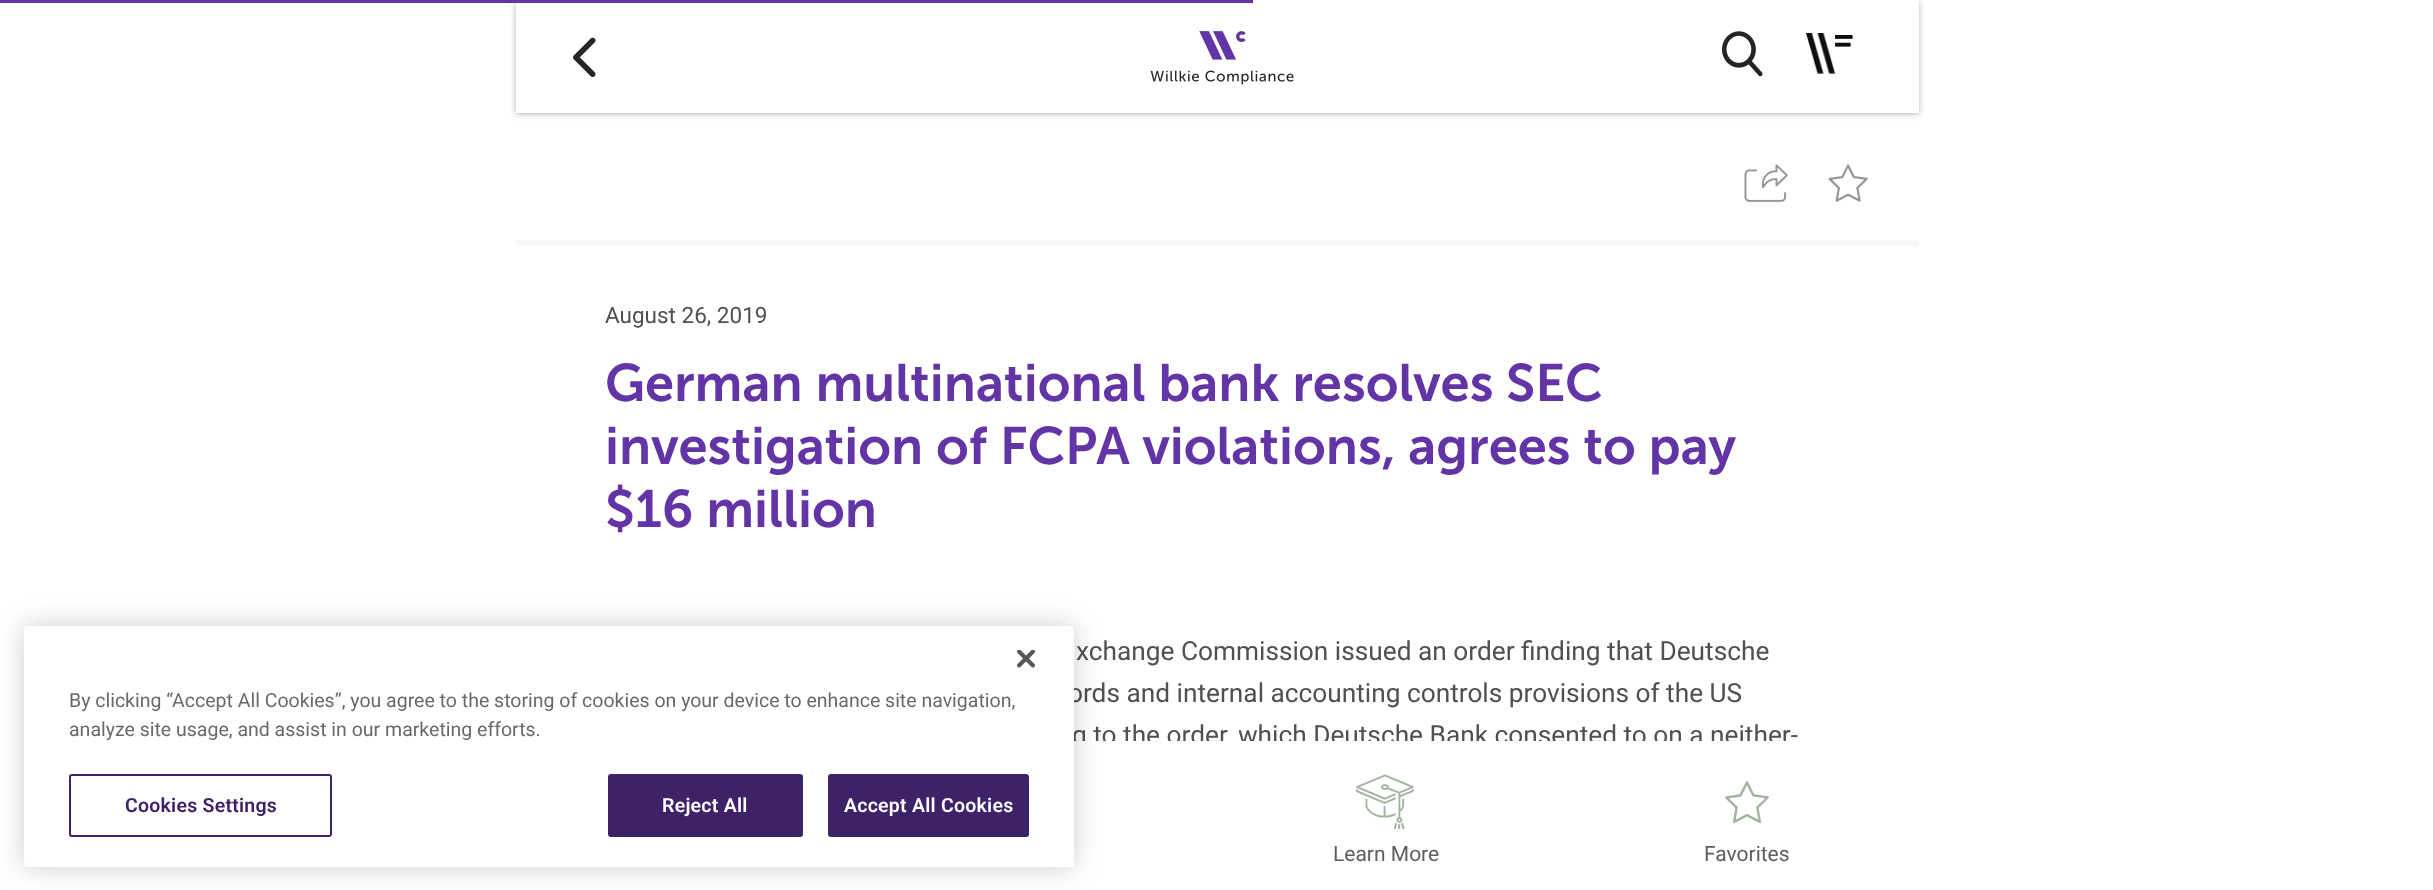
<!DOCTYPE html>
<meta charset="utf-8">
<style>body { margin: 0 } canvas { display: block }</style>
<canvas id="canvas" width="2433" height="890"></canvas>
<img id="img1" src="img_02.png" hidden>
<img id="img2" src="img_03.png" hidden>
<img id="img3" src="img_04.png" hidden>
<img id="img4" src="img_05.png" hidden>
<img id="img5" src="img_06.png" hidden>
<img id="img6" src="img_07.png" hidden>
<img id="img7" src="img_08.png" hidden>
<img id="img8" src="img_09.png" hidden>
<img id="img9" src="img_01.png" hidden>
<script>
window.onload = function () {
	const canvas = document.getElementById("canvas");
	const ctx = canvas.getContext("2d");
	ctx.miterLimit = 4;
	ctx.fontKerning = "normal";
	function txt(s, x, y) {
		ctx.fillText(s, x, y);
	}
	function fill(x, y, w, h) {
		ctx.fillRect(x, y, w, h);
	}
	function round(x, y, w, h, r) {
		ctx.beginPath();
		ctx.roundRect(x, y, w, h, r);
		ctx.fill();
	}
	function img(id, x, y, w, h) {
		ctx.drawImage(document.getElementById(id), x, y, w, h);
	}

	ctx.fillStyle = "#FFFFFF";
	fill(0, 0, 2433, 890);
	ctx.fillStyle = "rgba(0, 0, 0, 0.3)";
	ctx.filter = "blur(3px)";
	ctx.beginPath();
	ctx.rect(516, 2, 1403, 112);
	ctx.fill();
	ctx.filter = "none";
	ctx.fillStyle = "#FFFFFF";
	fill(516, 0, 1403, 113);
	ctx.fillStyle = "#6234A6";
	fill(0, 0, 1253, 3);
	img("img1", 573, 37, 23, 40);
	img("img2", 1150, 31, 144, 54);
	img("img3", 1722, 31, 41, 46);
	img("img4", 1806, 33, 47, 41);
	ctx.fillStyle = "#F8F8F8";
	fill(516, 240, 1403, 6);
	img("img5", 1744, 164, 44, 38);
	img("img6", 1828, 164, 40, 38);
	img("img7", 1356, 774, 58, 56);
	img("img8", 1725, 781, 44, 43);
	ctx.font = "22.5px Roboto";
	ctx.fillStyle = "#505050";
	txt("August 26, 2019", 605, 323);
	ctx.font = "600 52.5px Museo Sans";
	ctx.fillStyle = "#6234A6";
	txt("German multinational bank resolves SEC", 605, 401);
	txt("investigation of FCPA violations, agrees to pay", 605, 464);
	txt("$16 million", 605, 527);
	ctx.font = "26.25px Roboto";
	ctx.fillStyle = "#505050";
	txt("xchange Commission issued an order finding that Deutsche", 1076, 660);
	txt("ords and internal accounting controls provisions of the US", 1068, 702);
	txt("g to the order, which Deutsche Bank consented to on a neither-", 1072, 744);
	ctx.fillStyle = "#FFFFFF";
	fill(1074, 741, 713, 9);
	ctx.fillStyle = "rgba(0, 0, 0, 0.2)";
	ctx.filter = "blur(13.5px)";
	ctx.beginPath();
	ctx.roundRect(24, 626, 1050, 241, 4);
	ctx.fill();
	ctx.filter = "none";
	ctx.fillStyle = "#FFFFFF";
	round(24, 626, 1050, 241, 4);
	img("img9", 1017, 650, 18, 18);
	ctx.beginPath();
	ctx.roundRect(70, 775, 261, 61, 2);
	ctx.strokeStyle = "#3E2268";
	ctx.lineWidth = 2;
	ctx.stroke();
	ctx.letterSpacing = "0.25px";
	ctx.font = "600 19.5px Roboto";
	ctx.fillStyle = "#3E2268";
	txt("Cookies Settings", 125, 812);
	ctx.beginPath();
	ctx.roundRect(829, 775, 199, 61, 2);
	ctx.fill();
	ctx.stroke();
	ctx.fillStyle = "#FFFFFF";
	txt("Accept All Cookies", 844, 812);
	ctx.fillStyle = "#3E2268";
	ctx.beginPath();
	ctx.roundRect(609, 775, 193, 61, 2);
	ctx.fill();
	ctx.stroke();
	ctx.fillStyle = "#FFFFFF";
	txt("Reject All", 662, 812);
	ctx.letterSpacing = "0px";
	ctx.font = "19.5px Roboto";
	ctx.fillStyle = "#696969";
	txt("analyze site usage, and assist in our marketing efforts.", 69, 736);
	txt("By clicking “Accept All Cookies”, you agree to the storing of cookies on your device to enhance site navigation,", 69, 707);
	ctx.font = "21px Roboto";
	ctx.fillStyle = "#5C605B";
	txt("Learn More", 1333, 861);
	txt("Favorites", 1704, 861);
};
</script>
